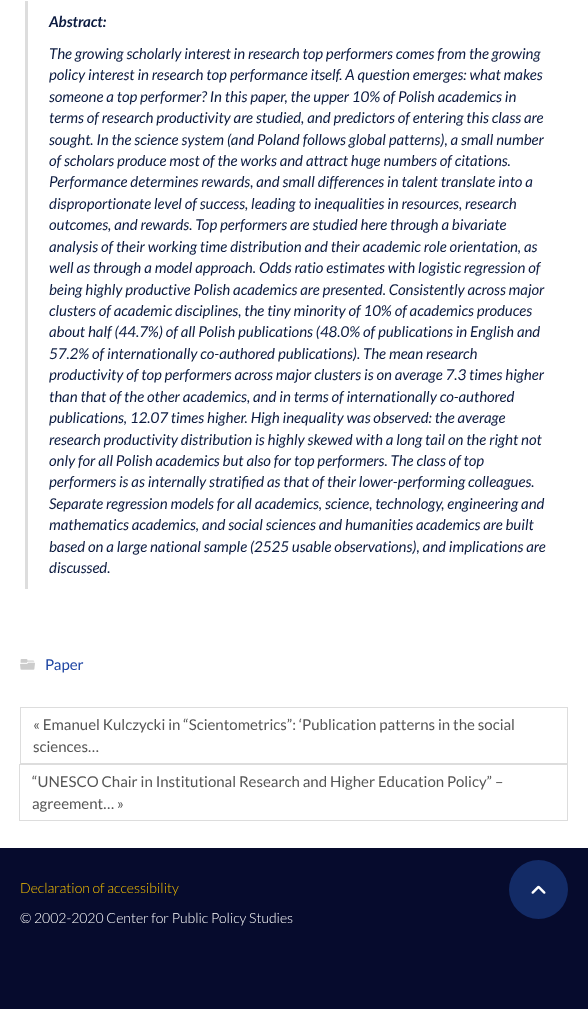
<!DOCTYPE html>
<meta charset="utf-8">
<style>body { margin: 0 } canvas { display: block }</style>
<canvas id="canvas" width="588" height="1009"></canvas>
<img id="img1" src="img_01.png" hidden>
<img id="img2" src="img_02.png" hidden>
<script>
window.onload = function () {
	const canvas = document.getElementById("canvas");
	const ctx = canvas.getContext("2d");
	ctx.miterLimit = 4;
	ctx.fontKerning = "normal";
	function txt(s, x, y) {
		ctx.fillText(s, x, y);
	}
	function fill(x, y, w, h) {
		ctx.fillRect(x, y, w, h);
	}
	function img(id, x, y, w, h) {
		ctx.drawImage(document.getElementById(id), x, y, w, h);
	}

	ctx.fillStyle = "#FFFFFF";
	fill(0, 0, 588, 1009);
	ctx.fillStyle = "#DDDDDD";
	fill(25, 1, 3, 588);
	img("img1", 20, 659, 15, 11);
	ctx.strokeStyle = "#DDDDDD";
	ctx.strokeRect(20.5, 707.5, 547, 56);
	ctx.strokeRect(19.5, 764.5, 548, 56);
	ctx.fillStyle = "#060B2D";
	fill(0, 848, 588, 161);
	ctx.fillStyle = "#132B66";
	ctx.beginPath();
	ctx.arc(538.5, 889.5, 29.5, 0, Math.PI * 2);
	ctx.fill();
	img("img2", 531, 885, 15, 9);
	ctx.font = "italic bold 15px Lato";
	ctx.fillStyle = "#0C1B40";
	txt("Abstract:", 49, 27);
	ctx.font = "italic 15px Lato";
	txt("The growing scholarly interest in research top performers comes from the growing", 49, 59);
	txt("policy interest in research top performance itself. A question emerges: what makes", 49, 80);
	txt("someone a top performer? In this paper, the upper 10% of Polish academics in", 49, 102);
	txt("terms of research productivity are studied, and predictors of entering this class are", 49, 123);
	txt("sought. In the science system (and Poland follows global patterns), a small number", 49, 145);
	txt("of scholars produce most of the works and attract huge numbers of citations.", 49, 166);
	txt("Performance determines rewards, and small differences in talent translate into a", 49, 187);
	txt("disproportionate level of success, leading to inequalities in resources, research", 49, 209);
	txt("outcomes, and rewards. Top performers are studied here through a bivariate", 49, 230);
	txt("analysis of their working time distribution and their academic role orientation, as", 49, 252);
	txt("well as through a model approach. Odds ratio estimates with logistic regression of", 49, 273);
	txt("being highly productive Polish academics are presented. Consistently across major", 49, 295);
	txt("clusters of academic disciplines, the tiny minority of 10% of academics produces", 49, 316);
	txt("about half (44.7%) of all Polish publications (48.0% of publications in English and", 49, 337);
	txt("57.2% of internationally co-authored publications). The mean research", 49, 359);
	txt("productivity of top performers across major clusters is on average 7.3 times higher", 49, 380);
	txt("than that of the other academics, and in terms of internationally co-authored", 49, 402);
	txt("publications, 12.07 times higher. High inequality was observed: the average", 49, 423);
	txt("research productivity distribution is highly skewed with a long tail on the right not", 49, 445);
	txt("only for all Polish academics but also for top performers. The class of top", 49, 466);
	txt("performers is as internally stratified as that of their lower-performing colleagues.", 49, 487);
	txt("Separate regression models for all academics, science, technology, engineering and", 49, 509);
	txt("mathematics academics, and social sciences and humanities academics are built", 49, 530);
	txt("based on a large national sample (2525 usable observations), and implications are", 49, 552);
	txt("discussed.", 49, 573);
	ctx.font = "15px Lato";
	ctx.fillStyle = "#1E45A3";
	txt("Paper", 45, 670);
	ctx.fillStyle = "#555555";
	txt("« Emanuel Kulczycki in “Scientometrics”: ‘Publication patterns in the social", 33, 730);
	txt("sciences…", 33, 752);
	txt("“UNESCO Chair in Institutional Research and Higher Education Policy” –", 32, 787);
	txt("agreement… »", 32, 809);
	ctx.font = "300 14px Lato";
	ctx.fillStyle = "#F5C000";
	txt("Declaration of accessibility", 20, 893);
	ctx.fillStyle = "#FFFFFF";
	txt("© 2002-2020 Center for Public Policy Studies", 20, 923);
};
</script>
